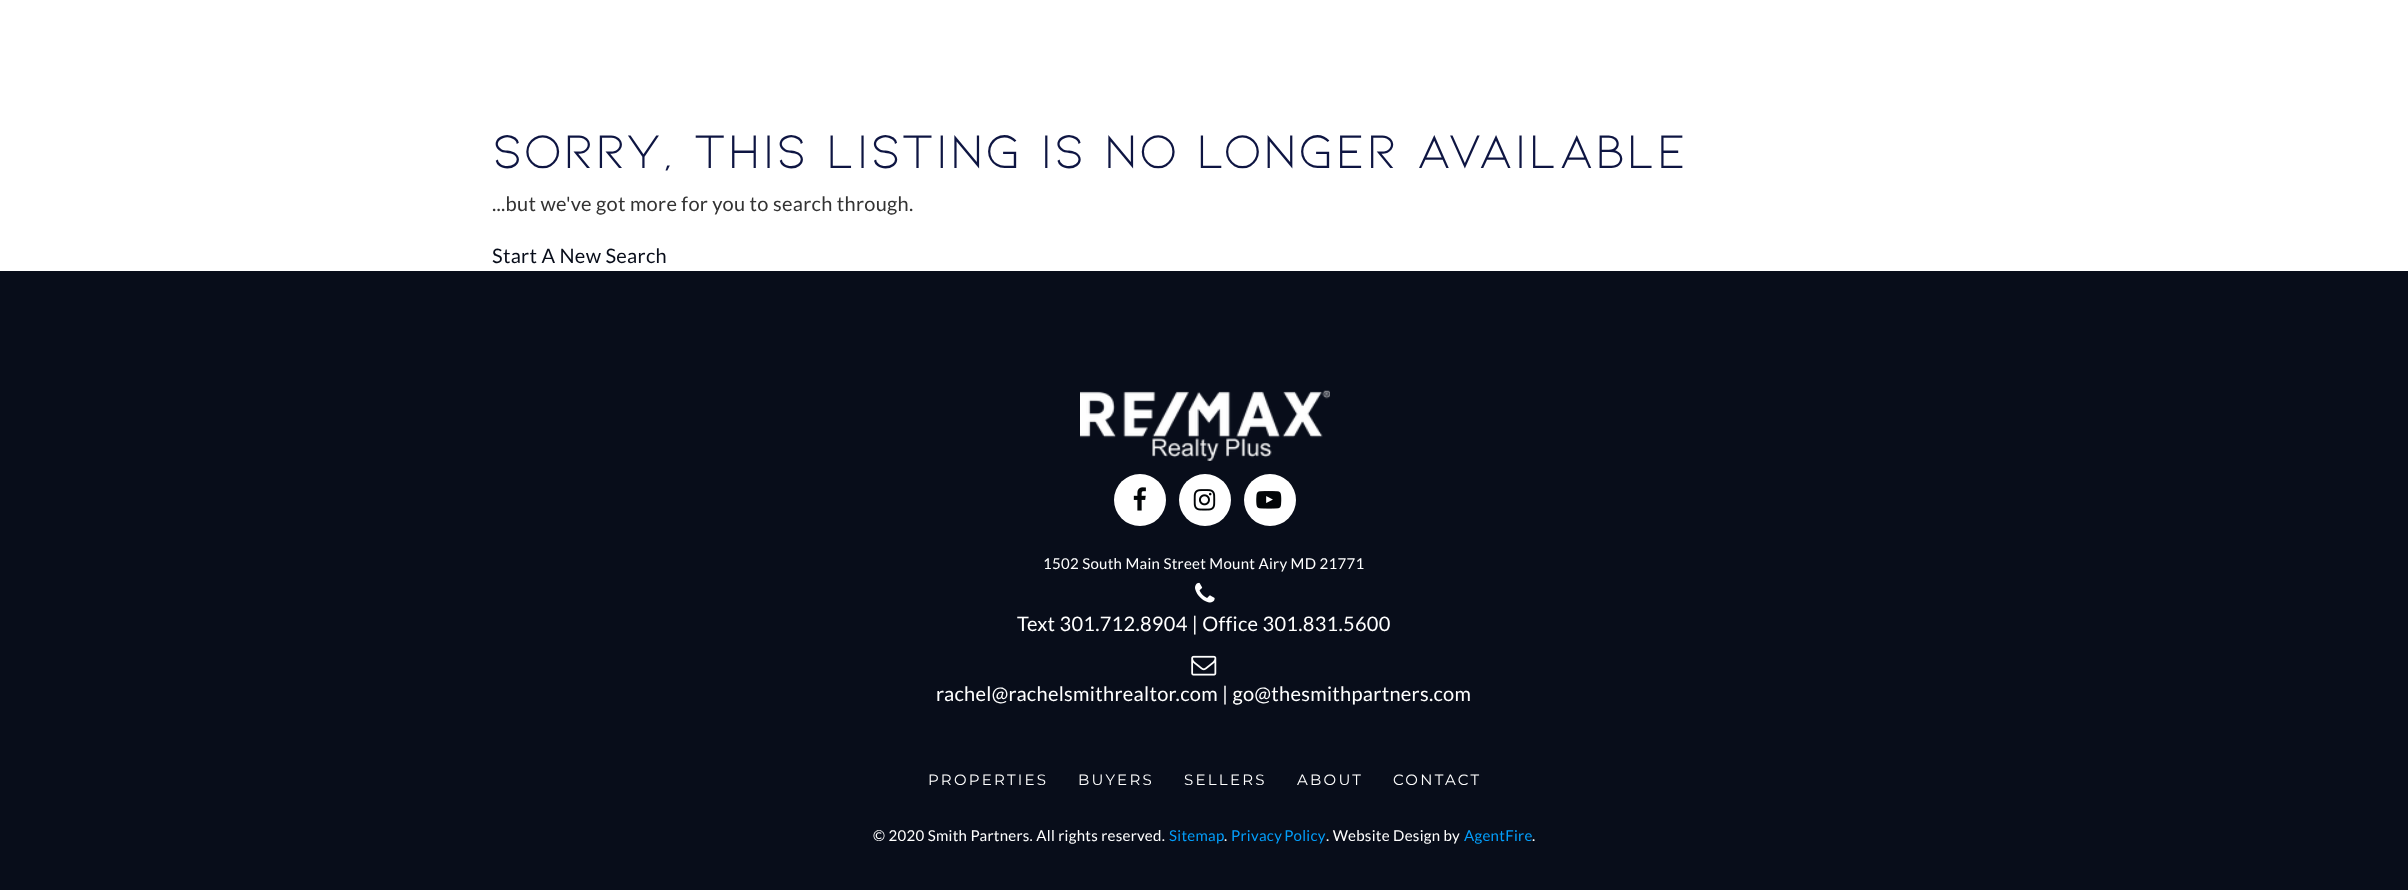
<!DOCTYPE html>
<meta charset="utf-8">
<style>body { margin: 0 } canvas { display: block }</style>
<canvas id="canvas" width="2408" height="890"></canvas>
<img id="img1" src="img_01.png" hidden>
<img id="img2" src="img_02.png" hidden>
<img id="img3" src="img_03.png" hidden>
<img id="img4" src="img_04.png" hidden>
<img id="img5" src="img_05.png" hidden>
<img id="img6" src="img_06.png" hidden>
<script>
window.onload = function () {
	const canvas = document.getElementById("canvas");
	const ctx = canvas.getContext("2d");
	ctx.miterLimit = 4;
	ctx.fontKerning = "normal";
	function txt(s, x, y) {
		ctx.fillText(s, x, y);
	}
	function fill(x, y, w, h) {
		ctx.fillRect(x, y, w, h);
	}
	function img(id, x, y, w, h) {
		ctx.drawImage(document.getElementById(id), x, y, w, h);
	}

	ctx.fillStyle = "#FFFFFF";
	fill(0, 0, 2408, 890);
	ctx.fillStyle = "#080D1A";
	fill(0, 271, 2408, 619);
	img("img1", 1080, 390, 250, 71);
	ctx.fillStyle = "#FFFFFF";
	ctx.beginPath();
	ctx.arc(1140, 500, 26, 0, Math.PI * 2);
	ctx.fill();
	img("img2", 1133, 487, 13, 24);
	ctx.beginPath();
	ctx.arc(1205, 500, 26, 0, Math.PI * 2);
	ctx.fill();
	img("img3", 1193, 489, 23, 22);
	ctx.beginPath();
	ctx.arc(1270, 500, 26, 0, Math.PI * 2);
	ctx.fill();
	img("img4", 1256, 491, 26, 18);
	img("img5", 1195, 582, 20, 21);
	img("img6", 1191, 655, 26, 21);
	ctx.letterSpacing = "1.25px";
	ctx.font = "50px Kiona";
	ctx.fillStyle = "#0E1542";
	txt("Sorry, this listing is no longer available", 492, 168);
	ctx.letterSpacing = "0.3px";
	ctx.font = "20px Lato";
	ctx.fillStyle = "#333333";
	txt("...but we've got more for you to search through.", 492, 211);
	ctx.fillStyle = "#080D1A";
	txt("Start A New Search", 492, 263);
	ctx.font = "15px Lato";
	ctx.fillStyle = "#FFFFFF";
	txt("1502 South Main Street Mount Airy MD 21771", 1043, 569);
	ctx.font = "20px Lato";
	txt("Text 301.712.8904 | Office 301.831.5600", 1017, 631);
	txt("rachel@rachelsmithrealtor.com | go@thesmithpartners.com", 936, 701);
	ctx.letterSpacing = "2.25px";
	ctx.font = "15px Montserrat";
	txt("PROPERTIES", 928, 785);
	txt("BUYERS", 1078, 785);
	txt("SELLERS", 1184, 785);
	txt("ABOUT", 1297, 785);
	txt("CONTACT", 1393, 785);
	ctx.letterSpacing = "0.3px";
	ctx.font = "15px Lato";
	txt("© 2020 Smith Partners. All rights reserved.", 873, 841);
	ctx.fillStyle = "#039EFB";
	txt("Sitemap", 1169, 841);
	ctx.fillStyle = "#FFFFFF";
	txt(".", 1224, 841);
	ctx.wordSpacing = "-1px";
	ctx.fillStyle = "#039EFB";
	txt("Privacy Policy", 1231, 841);
	ctx.wordSpacing = "0px";
	ctx.fillStyle = "#FFFFFF";
	txt(". Website Design by", 1326, 841);
	ctx.fillStyle = "#039EFB";
	txt("AgentFire", 1464, 841);
	ctx.fillStyle = "#FFFFFF";
	txt(".", 1532, 841);
};
</script>
